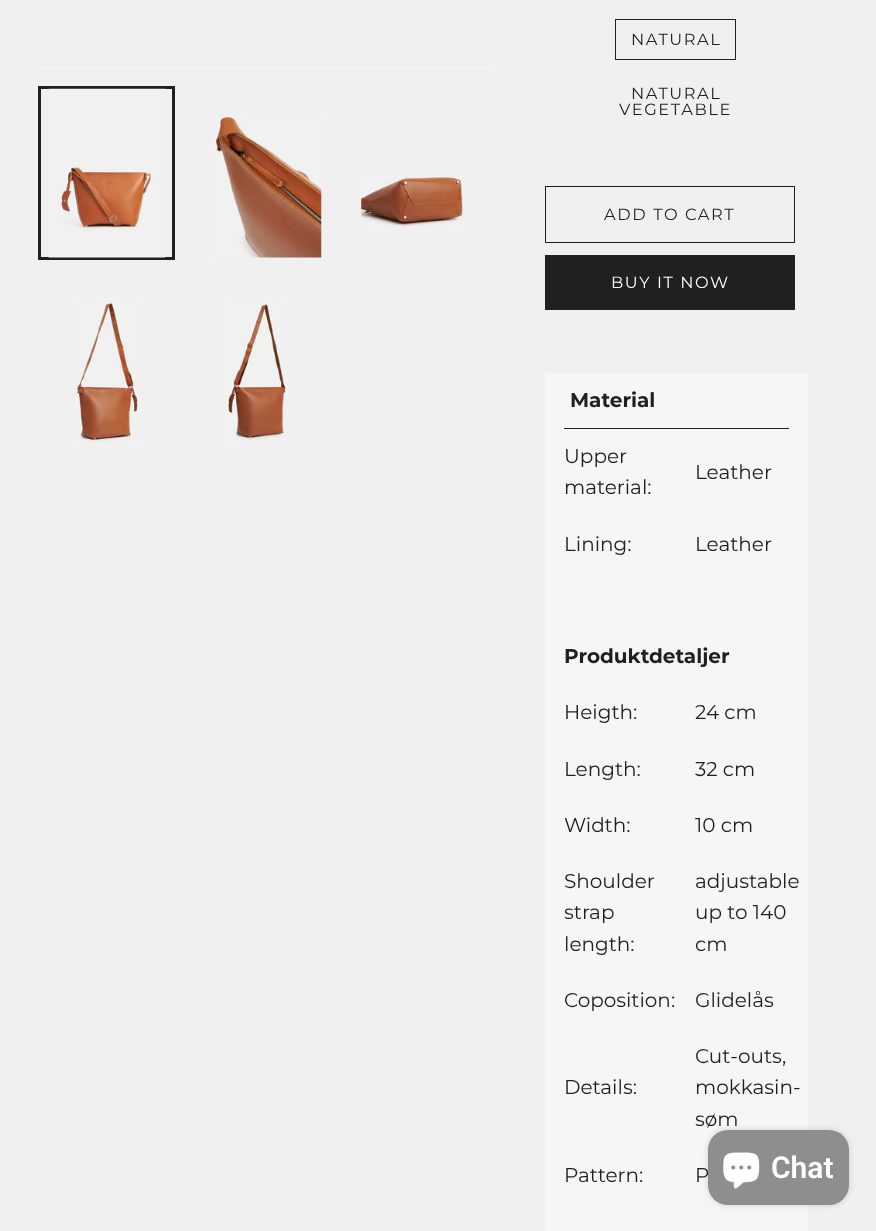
<!DOCTYPE html>
<meta charset="utf-8">
<style>body { margin: 0 } canvas { display: block }</style>
<canvas id="canvas" width="876" height="1231"></canvas>
<img id="img1" src="img_01.png" hidden>
<img id="img2" src="img_02.png" hidden>
<img id="img3" src="img_03.png" hidden>
<img id="img4" src="img_04.png" hidden>
<img id="img5" src="img_05.png" hidden>
<img id="img6" src="img_06.png" hidden>
<script>
window.onload = function () {
	const canvas = document.getElementById("canvas");
	const ctx = canvas.getContext("2d");
	ctx.miterLimit = 4;
	ctx.fontKerning = "normal";
	function txt(s, x, y) {
		ctx.fillText(s, x, y);
	}
	function fill(x, y, w, h) {
		ctx.fillRect(x, y, w, h);
	}
	function round(x, y, w, h, r) {
		ctx.beginPath();
		ctx.roundRect(x, y, w, h, r);
		ctx.fill();
	}
	function img(id, x, y, w, h) {
		ctx.drawImage(document.getElementById(id), x, y, w, h);
	}

	ctx.fillStyle = "#F0F0F0";
	fill(0, 0, 876, 1231);
	ctx.fillStyle = "#F6F6F6";
	fill(38, 67, 451, 1);
	ctx.strokeStyle = "#1F2021";
	ctx.lineWidth = 3;
	ctx.strokeRect(39.5, 87.5, 134, 171);
	img("img1", 48, 88, 117, 170);
	img("img2", 212, 114, 110, 144);
	img("img3", 361, 176, 103, 51);
	img("img4", 76, 302, 64, 141);
	img("img5", 225, 302, 61, 139);
	ctx.lineWidth = 1;
	ctx.strokeRect(615.5, 19.5, 120, 40);
	ctx.strokeRect(545.5, 186.5, 249, 56);
	ctx.fillStyle = "#1F2021";
	fill(545, 255, 250, 55);
	ctx.fillStyle = "#F6F6F6";
	fill(545, 373, 263, 858);
	ctx.fillStyle = "#1F2021";
	fill(564, 428, 225, 1);
	ctx.fillStyle = "rgba(0, 0, 0, 0.15)";
	ctx.filter = "blur(3px)";
	ctx.beginPath();
	ctx.roundRect(708, 1130, 141, 75, 20);
	ctx.fill();
	ctx.filter = "none";
	ctx.letterSpacing = "1.6px";
	ctx.font = "16.25px Montserrat";
	ctx.fillStyle = "#1F2021";
	txt("NATURAL", 631, 45);
	txt("NATURAL", 631, 99);
	txt("VEGETABLE", 619, 115);
	txt("ADD TO CART", 604, 220);
	ctx.fillStyle = "#FFFFFF";
	txt("BUY IT NOW", 611, 288);
	ctx.letterSpacing = "0px";
	ctx.font = "bold 20px Montserrat";
	ctx.fillStyle = "#1F2021";
	txt("Material", 570, 407);
	ctx.font = "20px Montserrat";
	txt("Upper", 564, 463);
	txt("material:", 564, 494);
	txt("Leather", 695, 479);
	txt("Lining:", 564, 551);
	txt("Leather", 695, 551);
	ctx.font = "bold 20px Montserrat";
	txt("Produktdetaljer", 564, 663);
	ctx.font = "20px Montserrat";
	txt("Heigth:", 564, 719);
	txt("24 cm", 695, 719);
	txt("Length:", 564, 776);
	txt("32 cm", 695, 776);
	txt("Width:", 564, 832);
	txt("10 cm", 695, 832);
	txt("Shoulder", 564, 888);
	txt("strap", 564, 919);
	txt("length:", 564, 951);
	txt("adjustable", 695, 888);
	txt("up to 140", 695, 919);
	txt("cm", 695, 951);
	txt("Coposition:", 564, 1007);
	txt("Glidelås", 695, 1007);
	txt("Details:", 564, 1094);
	txt("Cut-outs,", 695, 1063);
	txt("mokkasin-", 695, 1094);
	txt("søm", 695, 1126);
	txt("Pattern:", 564, 1182);
	txt("P", 695, 1182);
	ctx.fillStyle = "#8E8E8E";
	round(708, 1130, 141, 75, 20);
	img("img6", 723, 1152, 37, 37);
	ctx.font = "600 30px Roboto";
	ctx.fillStyle = "#FFFFFF";
	txt("Chat", 771, 1178);
};
</script>
